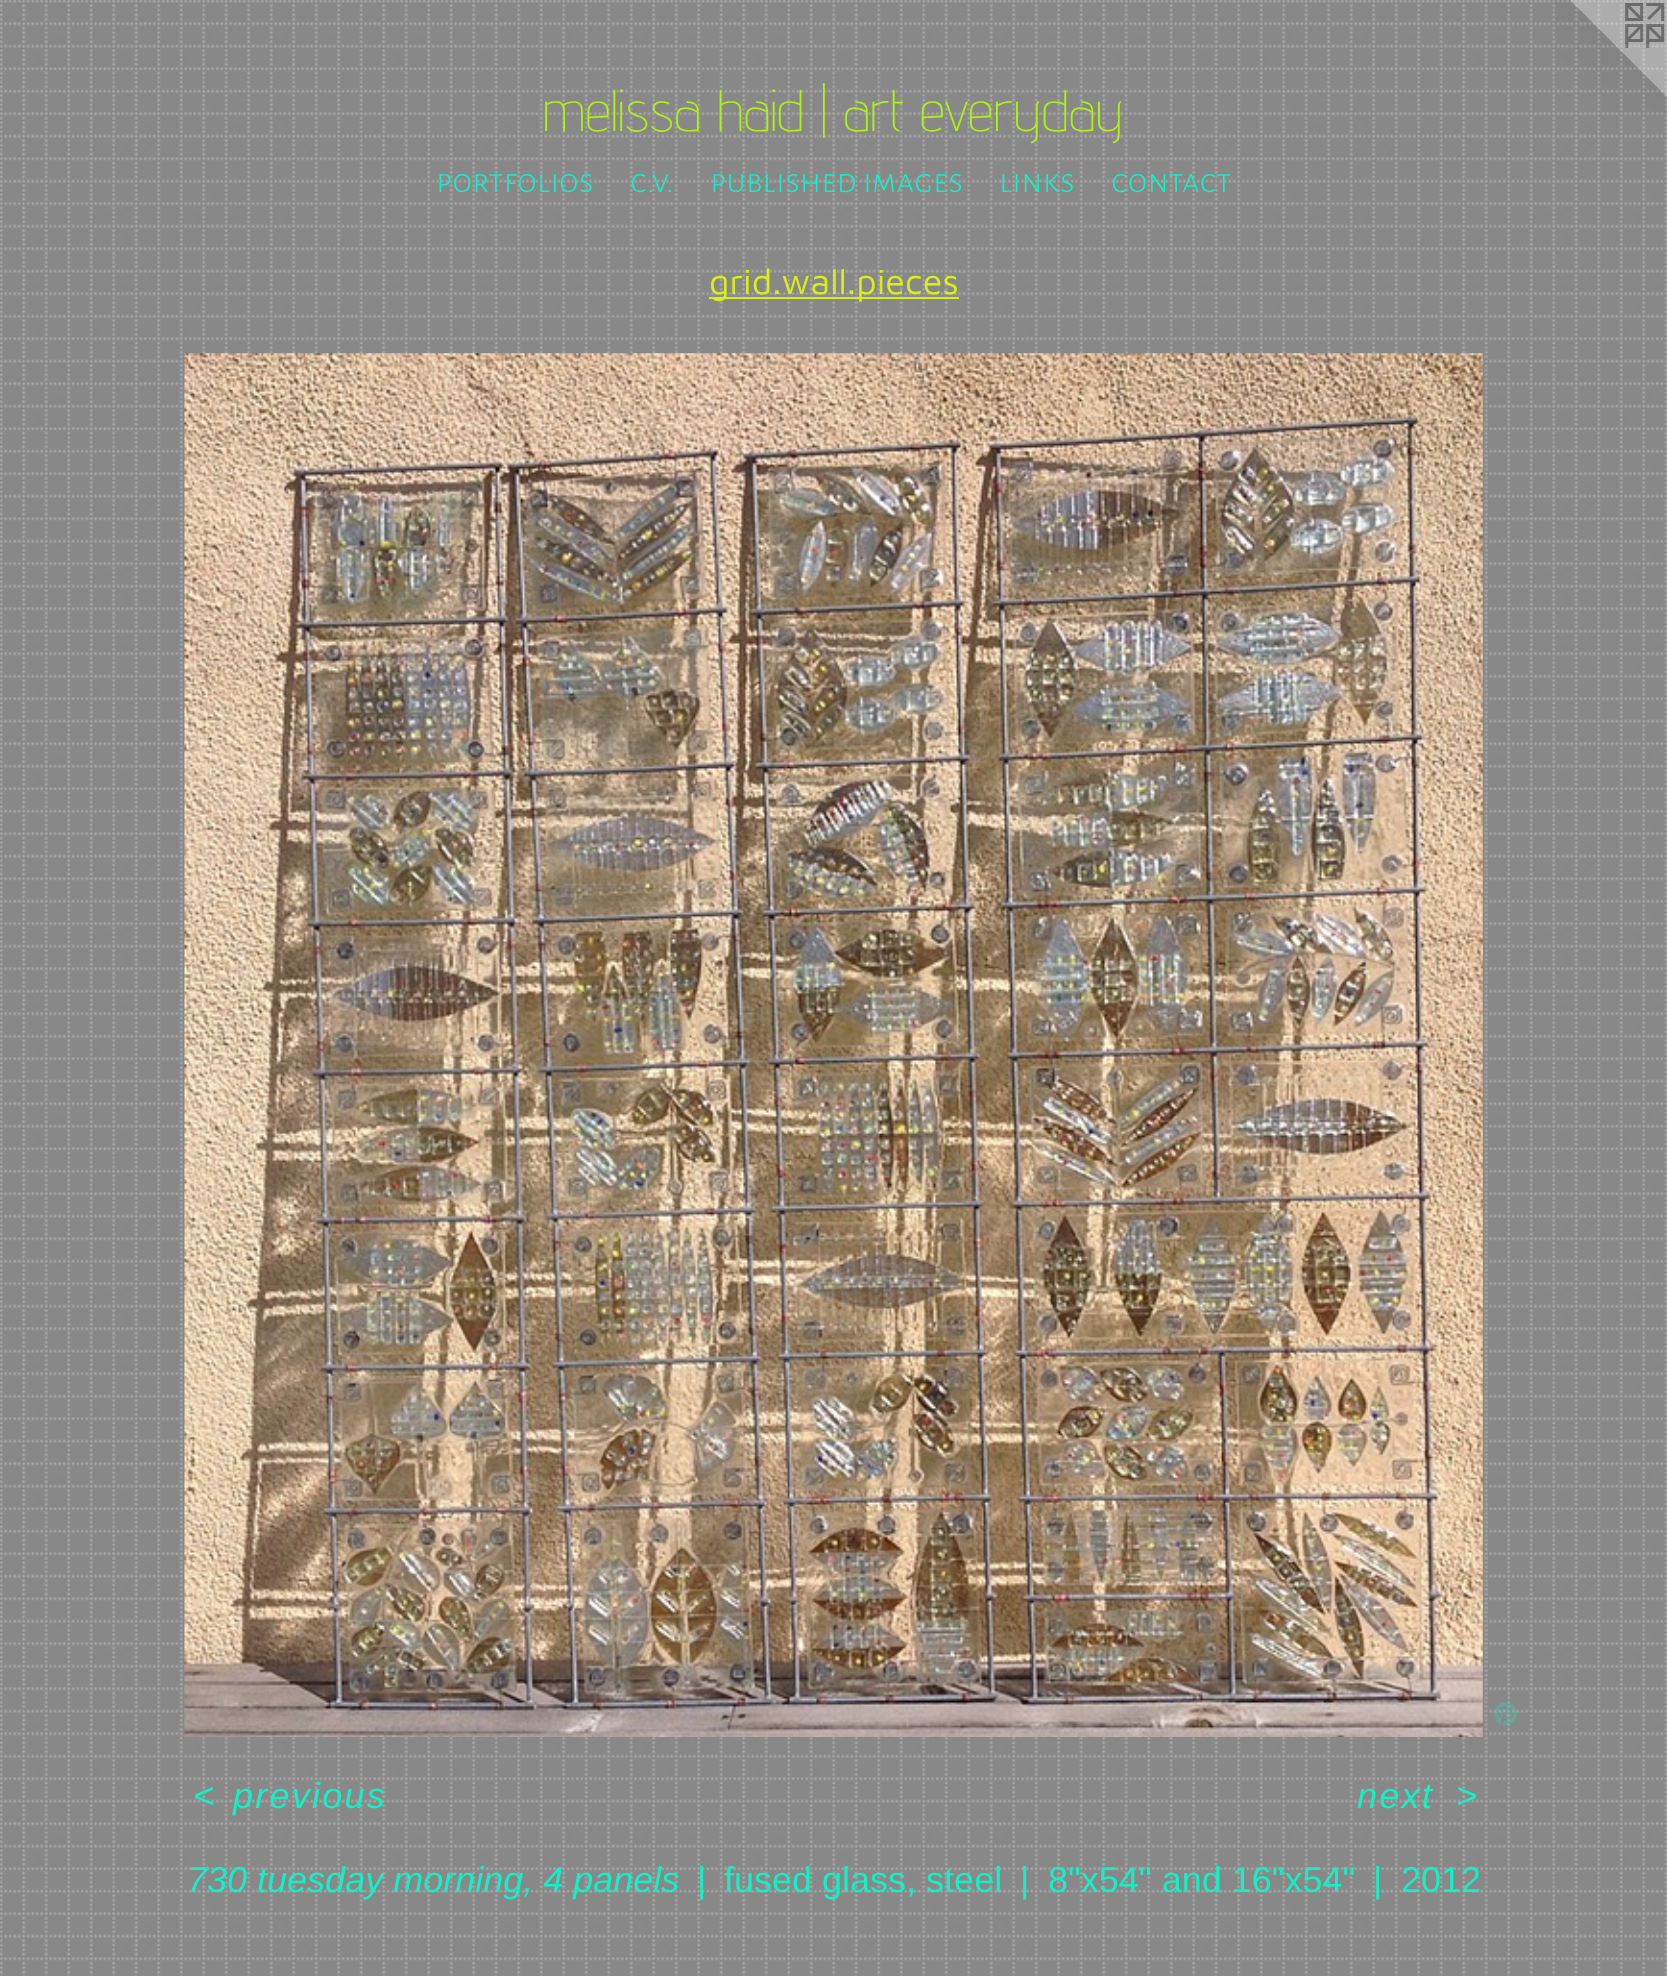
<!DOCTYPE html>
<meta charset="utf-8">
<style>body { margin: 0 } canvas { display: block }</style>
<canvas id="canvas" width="1667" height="1976"></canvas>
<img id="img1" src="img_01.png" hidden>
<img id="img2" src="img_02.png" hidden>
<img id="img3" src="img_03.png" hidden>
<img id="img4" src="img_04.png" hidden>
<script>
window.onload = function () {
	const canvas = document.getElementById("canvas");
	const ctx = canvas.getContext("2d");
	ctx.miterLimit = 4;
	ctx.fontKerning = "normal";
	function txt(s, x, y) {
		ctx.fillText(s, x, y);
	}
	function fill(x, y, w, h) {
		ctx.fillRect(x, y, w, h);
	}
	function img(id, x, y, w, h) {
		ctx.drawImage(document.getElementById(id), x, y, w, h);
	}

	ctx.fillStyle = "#FFFFFF";
	fill(0, 0, 1667, 1976);
	img("img1", 0, 0, 1667, 1976);
	img("img2", 1552, 0, 115, 115);
	ctx.fillStyle = "#DAEF15";
	fill(709, 297, 250, 2);
	img("img3", 184, 353, 1299, 1384);
	img("img4", 1494, 1702, 23, 24);
	ctx.font = "200 58.5px Advent Pro";
	ctx.fillStyle = "#B1EF15";
	txt("melissa haid | art everyday", 543, 131);
	ctx.font = "300 36px Alegreya Sans SC";
	ctx.fillStyle = "#15EFC5";
	txt("portfolios", 436, 192);
	txt("c.v.", 630, 192);
	txt("published images", 710, 192);
	txt("links", 999, 192);
	txt("contact", 1111, 192);
	ctx.font = "36px Maven Pro";
	ctx.fillStyle = "#DAEF15";
	txt("grid.wall.pieces", 709, 294);
	ctx.letterSpacing = "2.25px";
	ctx.font = "italic 36px Liberation Sans";
	ctx.fillStyle = "#15EFC5";
	txt("<", 193, 1808);
	txt("previous", 233, 1808);
	txt("next", 1357, 1808);
	txt(">", 1456, 1808);
	ctx.letterSpacing = "0px";
	txt("730 tuesday morning, 4 panels", 187, 1892);
	ctx.font = "36px Liberation Sans";
	txt("|", 697, 1892);
	txt("fused glass, steel", 724, 1892);
	txt("|", 1020, 1892);
	txt("8\"x54\" and 16\"x54\"", 1048, 1892);
	txt("|", 1373, 1892);
	txt("2012", 1401, 1892);
};
</script>
